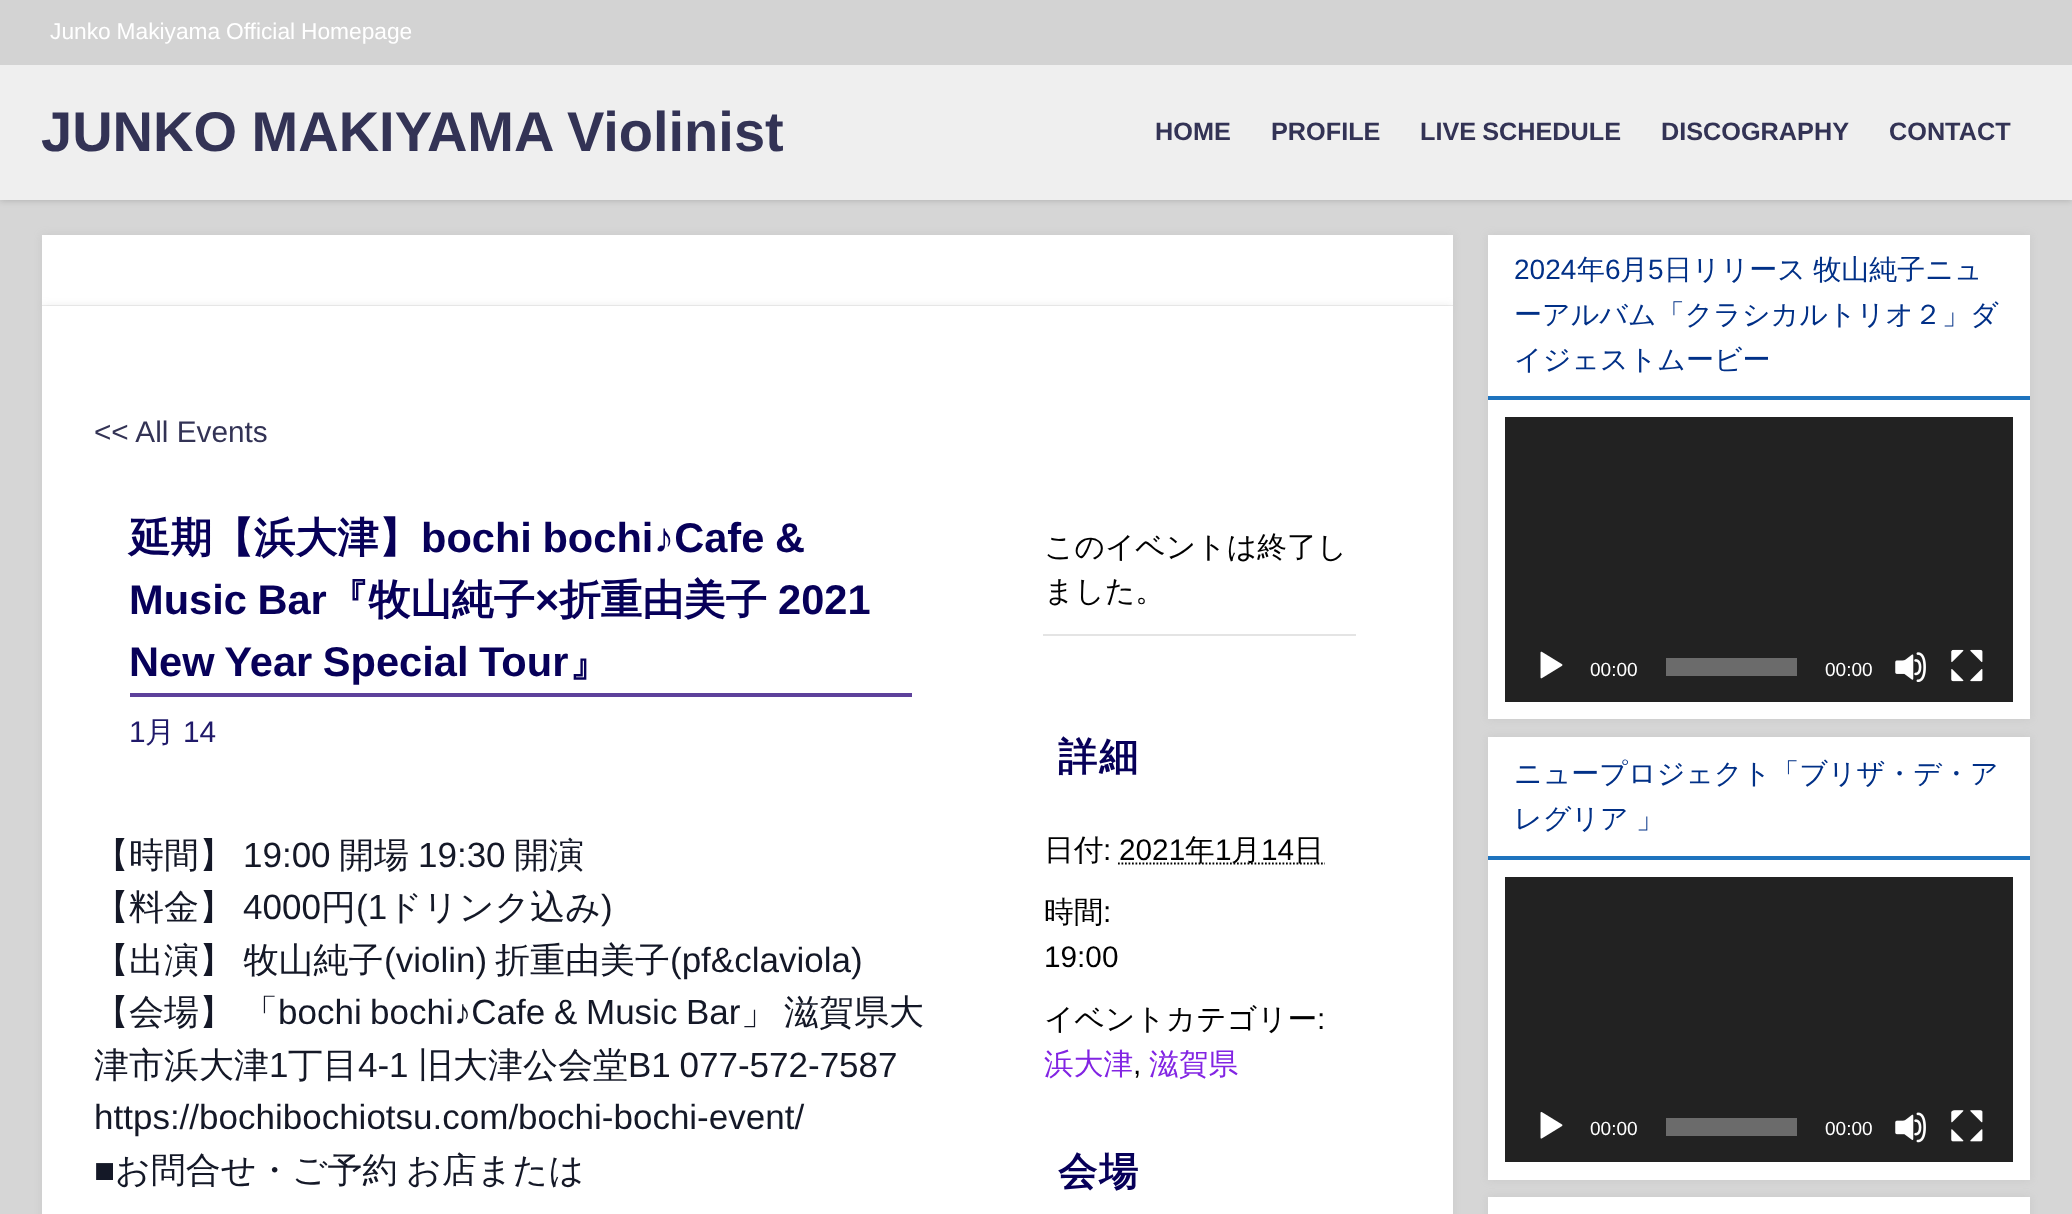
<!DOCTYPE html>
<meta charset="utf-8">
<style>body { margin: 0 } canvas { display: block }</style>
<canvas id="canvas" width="2072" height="1214"></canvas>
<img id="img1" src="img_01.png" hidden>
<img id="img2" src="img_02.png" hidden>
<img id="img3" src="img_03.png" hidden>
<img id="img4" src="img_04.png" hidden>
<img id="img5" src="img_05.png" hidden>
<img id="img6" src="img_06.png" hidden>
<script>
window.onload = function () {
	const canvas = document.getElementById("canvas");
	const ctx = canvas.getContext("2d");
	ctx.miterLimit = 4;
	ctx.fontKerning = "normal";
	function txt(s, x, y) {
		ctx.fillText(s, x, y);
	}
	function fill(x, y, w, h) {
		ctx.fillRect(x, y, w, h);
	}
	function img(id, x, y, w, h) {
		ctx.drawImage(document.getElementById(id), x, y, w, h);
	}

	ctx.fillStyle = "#D6D6D6";
	fill(0, 0, 2072, 1214);
	ctx.save();
	ctx.beginPath();
	ctx.moveTo(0, 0);
	ctx.lineTo(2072, 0);
	ctx.lineTo(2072, 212);
	ctx.lineTo(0, 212);
	ctx.closePath();
	ctx.moveTo(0, 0);
	ctx.lineTo(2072, 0);
	ctx.lineTo(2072, 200);
	ctx.lineTo(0, 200);
	ctx.closePath();
	ctx.clip("evenodd");
	ctx.fillStyle = "rgba(0, 0, 0, 0.2)";
	ctx.filter = "blur(3.5px)";
	ctx.beginPath();
	ctx.rect(0, 0, 2072, 200);
	ctx.fill();
	ctx.filter = "none";
	ctx.restore();
	ctx.fillStyle = "rgba(255, 255, 255, 0.6)";
	fill(0, 65, 2072, 135);
	ctx.fillStyle = "#D3D3D3";
	fill(0, 0, 2072, 65);
	ctx.fillStyle = "rgba(150, 150, 150, 0.2)";
	ctx.filter = "blur(4.5px)";
	ctx.beginPath();
	ctx.rect(42, 235, 1411, 71);
	ctx.fill();
	ctx.filter = "none";
	ctx.fillStyle = "#FFFFFF";
	fill(42, 235, 1411, 70);
	ctx.fillStyle = "#EEEEEE";
	fill(42, 305, 1411, 1);
	ctx.fillStyle = "rgba(150, 150, 150, 0.2)";
	ctx.filter = "blur(4.5px)";
	ctx.beginPath();
	ctx.rect(42, 306, 1411, 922);
	ctx.fill();
	ctx.filter = "none";
	ctx.fillStyle = "#FFFFFF";
	fill(42, 306, 1411, 908);
	ctx.fillStyle = "#5D419B";
	fill(130, 693, 782, 4);
	ctx.fillStyle = "#E4E4E4";
	fill(1043, 634, 313, 2);
	ctx.beginPath();
	ctx.moveTo(1118, 863.5);
	ctx.lineTo(1325, 863.5);
	ctx.strokeStyle = "#000000";
	ctx.lineWidth = 1.8;
	ctx.setLineDash([1.75, 1.75]);
	ctx.stroke();
	ctx.fillStyle = "rgba(150, 150, 150, 0.2)";
	ctx.filter = "blur(4.5px)";
	ctx.beginPath();
	ctx.rect(1488, 235, 542, 484);
	ctx.fill();
	ctx.filter = "none";
	ctx.fillStyle = "#FFFFFF";
	fill(1488, 235, 542, 484);
	ctx.fillStyle = "#1E73BE";
	fill(1488, 396, 542, 4);
	ctx.fillStyle = "#222222";
	fill(1505, 417, 508, 285);
	img("img1", 1540, 651, 23, 28);
	ctx.fillStyle = "#6B6B6B";
	fill(1666, 658, 131, 18);
	img("img2", 1895, 652, 31, 30);
	img("img3", 1951, 649, 32, 33);
	ctx.fillStyle = "rgba(150, 150, 150, 0.2)";
	ctx.filter = "blur(4.5px)";
	ctx.beginPath();
	ctx.rect(1488, 737, 542, 443);
	ctx.fill();
	ctx.filter = "none";
	ctx.fillStyle = "#FFFFFF";
	fill(1488, 737, 542, 443);
	ctx.fillStyle = "#1E73BE";
	fill(1488, 856, 542, 4);
	ctx.fillStyle = "#222222";
	fill(1505, 877, 508, 285);
	img("img4", 1540, 1111, 23, 28);
	ctx.fillStyle = "#6B6B6B";
	fill(1666, 1118, 131, 18);
	img("img5", 1895, 1112, 31, 31);
	img("img6", 1951, 1110, 32, 32);
	ctx.fillStyle = "rgba(150, 150, 150, 0.2)";
	ctx.filter = "blur(4.5px)";
	ctx.beginPath();
	ctx.rect(1488, 1197, 542, 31);
	ctx.fill();
	ctx.filter = "none";
	ctx.fillStyle = "#FFFFFF";
	fill(1488, 1197, 542, 17);
	ctx.wordSpacing = "-0.5px";
	ctx.font = "22.75px Liberation Sans";
	txt("Junko Makiyama Official Homepage", 50, 39);
	ctx.wordSpacing = "-1px";
	ctx.font = "bold 56px Liberation Sans";
	ctx.fillStyle = "#333355";
	txt("JUNKO MAKIYAMA Violinist", 41, 151);
	ctx.wordSpacing = "0px";
	ctx.font = "bold 25.25px Liberation Sans";
	txt("HOME", 1155, 140);
	txt("PROFILE", 1271, 140);
	ctx.wordSpacing = "-1px";
	txt("LIVE SCHEDULE", 1420, 140);
	ctx.wordSpacing = "0px";
	txt("DISCOGRAPHY", 1661, 140);
	txt("CONTACT", 1889, 140);
	ctx.font = "29.75px Liberation Sans";
	txt("<< All Events", 94, 442);
	ctx.font = "bold 41.6px WenQuanYi Zen Hei";
	ctx.fillStyle = "#070059";
	txt("延期【浜大津】", 129, 552);
	ctx.wordSpacing = "-1px";
	ctx.font = "bold 41.6px Liberation Sans";
	txt("bochi bochi♪Cafe &", 421, 552);
	txt("Music Bar", 129, 614);
	ctx.wordSpacing = "0px";
	ctx.font = "bold 41.6px WenQuanYi Zen Hei";
	txt("『牧山純子", 327, 614);
	ctx.font = "bold 41.6px Liberation Sans";
	txt("×", 535, 614);
	ctx.font = "bold 41.6px WenQuanYi Zen Hei";
	txt("折重由美子", 559, 614);
	ctx.font = "bold 41.6px Liberation Sans";
	txt("2021", 778, 614);
	ctx.wordSpacing = "-1px";
	txt("New Year Special Tour", 129, 676);
	ctx.wordSpacing = "0px";
	ctx.font = "bold 41.6px WenQuanYi Zen Hei";
	txt("』", 569, 676);
	ctx.font = "29.75px Liberation Sans";
	ctx.fillStyle = "#201A6A";
	txt("1", 129, 742);
	ctx.font = "500 29.75px WenQuanYi Zen Hei";
	txt("月", 145, 742);
	ctx.font = "29.75px Liberation Sans";
	txt("14", 183, 742);
	ctx.font = "500 35px WenQuanYi Zen Hei";
	ctx.fillStyle = "#141827";
	txt("【時間】", 94, 867);
	ctx.font = "35px Liberation Sans";
	txt("19:00", 243, 867);
	ctx.font = "500 35px WenQuanYi Zen Hei";
	txt("開場", 339, 867);
	ctx.font = "35px Liberation Sans";
	txt("19:30", 418, 867);
	ctx.font = "500 35px WenQuanYi Zen Hei";
	txt("開演", 514, 867);
	txt("【料金】", 94, 919);
	ctx.font = "35px Liberation Sans";
	txt("4000", 243, 919);
	ctx.font = "500 35px WenQuanYi Zen Hei";
	txt("円", 321, 919);
	ctx.font = "35px Liberation Sans";
	txt("(1", 356, 919);
	ctx.font = "500 35px WenQuanYi Zen Hei";
	txt("ドリンク込み", 387, 919);
	ctx.font = "35px Liberation Sans";
	txt(")", 601, 919);
	ctx.wordSpacing = "-1px";
	ctx.font = "500 35px WenQuanYi Zen Hei";
	txt("【出演】 牧山純子", 94, 972);
	ctx.wordSpacing = "0px";
	ctx.font = "35px Liberation Sans";
	txt("(violin)", 384, 972);
	ctx.font = "500 35px WenQuanYi Zen Hei";
	txt("折重由美子", 495, 972);
	ctx.font = "35px Liberation Sans";
	txt("(pf&claviola)", 670, 972);
	ctx.font = "500 35px WenQuanYi Zen Hei";
	txt("【会場】", 94, 1024);
	txt("「", 243, 1024);
	ctx.font = "35px Liberation Sans";
	txt("bochi", 278, 1024);
	txt("bochi♪Cafe", 370, 1024);
	txt("&", 554, 1024);
	txt("Music", 586, 1024);
	txt("Bar", 686, 1024);
	ctx.font = "500 35px WenQuanYi Zen Hei";
	txt("」", 741, 1024);
	txt("滋賀県大", 784, 1024);
	txt("津市浜大津", 94, 1077);
	ctx.font = "35px Liberation Sans";
	txt("1", 269, 1077);
	ctx.font = "500 35px WenQuanYi Zen Hei";
	txt("丁目", 288, 1077);
	ctx.font = "35px Liberation Sans";
	txt("4-1", 358, 1077);
	ctx.font = "500 35px WenQuanYi Zen Hei";
	txt("旧大津公会堂", 418, 1077);
	ctx.wordSpacing = "-1px";
	ctx.font = "35px Liberation Sans";
	txt("B1 077-572-7587", 628, 1077);
	ctx.wordSpacing = "0px";
	txt("https://bochibochiotsu.com/bochi-bochi-event/", 94, 1129);
	txt("■", 94, 1182);
	ctx.wordSpacing = "-2px";
	ctx.font = "500 35px WenQuanYi Zen Hei";
	txt("お問合せ・ご予約 お店または", 115, 1182);
	ctx.wordSpacing = "0px";
	ctx.font = "500 29.75px WenQuanYi Zen Hei";
	ctx.fillStyle = "#000000";
	txt("このイベントは終了し", 1044, 557);
	txt("ました。", 1044, 601);
	ctx.letterSpacing = "2px";
	ctx.font = "bold 39px WenQuanYi Zen Hei";
	ctx.fillStyle = "#070059";
	txt("詳細", 1058, 770);
	ctx.letterSpacing = "0px";
	ctx.font = "500 29.75px WenQuanYi Zen Hei";
	ctx.fillStyle = "#000000";
	txt("日付", 1044, 860);
	ctx.font = "29.75px Liberation Sans";
	txt(":", 1103, 860);
	txt("2021", 1119, 860);
	ctx.font = "500 29.75px WenQuanYi Zen Hei";
	txt("年", 1185, 860);
	ctx.font = "29.75px Liberation Sans";
	txt("1", 1215, 860);
	ctx.font = "500 29.75px WenQuanYi Zen Hei";
	txt("月", 1231, 860);
	ctx.font = "29.75px Liberation Sans";
	txt("14", 1261, 860);
	ctx.font = "500 29.75px WenQuanYi Zen Hei";
	txt("日", 1294, 860);
	txt("時間", 1044, 922);
	ctx.font = "29.75px Liberation Sans";
	txt(":", 1103, 922);
	txt("19:00", 1044, 967);
	ctx.font = "500 29.75px WenQuanYi Zen Hei";
	txt("イベントカテゴリー", 1044, 1029);
	ctx.font = "29.75px Liberation Sans";
	txt(":", 1317, 1029);
	ctx.font = "500 29.75px WenQuanYi Zen Hei";
	ctx.fillStyle = "#8224E3";
	txt("浜大津", 1044, 1074);
	ctx.font = "29.75px Liberation Sans";
	ctx.fillStyle = "#000000";
	txt(",", 1133, 1074);
	ctx.font = "500 29.75px WenQuanYi Zen Hei";
	ctx.fillStyle = "#8224E3";
	txt("滋賀県", 1149, 1074);
	ctx.letterSpacing = "2px";
	ctx.font = "bold 39px WenQuanYi Zen Hei";
	ctx.fillStyle = "#070059";
	txt("会場", 1058, 1185);
	ctx.letterSpacing = "0px";
	ctx.font = "28px Liberation Sans";
	ctx.fillStyle = "#013087";
	txt("2024", 1514, 279);
	ctx.font = "500 28px WenQuanYi Zen Hei";
	txt("年", 1577, 279);
	ctx.font = "28px Liberation Sans";
	txt("6", 1605, 279);
	ctx.font = "500 28px WenQuanYi Zen Hei";
	txt("月", 1620, 279);
	ctx.font = "28px Liberation Sans";
	txt("5", 1648, 279);
	ctx.wordSpacing = "-1px";
	ctx.font = "500 28px WenQuanYi Zen Hei";
	txt("日リリース 牧山純子ニュ", 1664, 279);
	ctx.wordSpacing = "0px";
	txt("ーアルバム「クラシカルトリオ２」ダ", 1514, 324);
	txt("イジェストムービー", 1514, 369);
	ctx.font = "19px Liberation Sans";
	ctx.fillStyle = "#FFFFFF";
	txt("00:00", 1590, 676);
	txt("00:00", 1825, 676);
	ctx.font = "500 28px WenQuanYi Zen Hei";
	ctx.fillStyle = "#013087";
	txt("ニュープロジェクト「ブリザ・デ・ア", 1514, 783);
	ctx.wordSpacing = "-1px";
	txt("レグリア 」", 1514, 828);
	ctx.wordSpacing = "0px";
	ctx.font = "19px Liberation Sans";
	ctx.fillStyle = "#FFFFFF";
	txt("00:00", 1590, 1135);
	txt("00:00", 1825, 1135);
};
</script>
